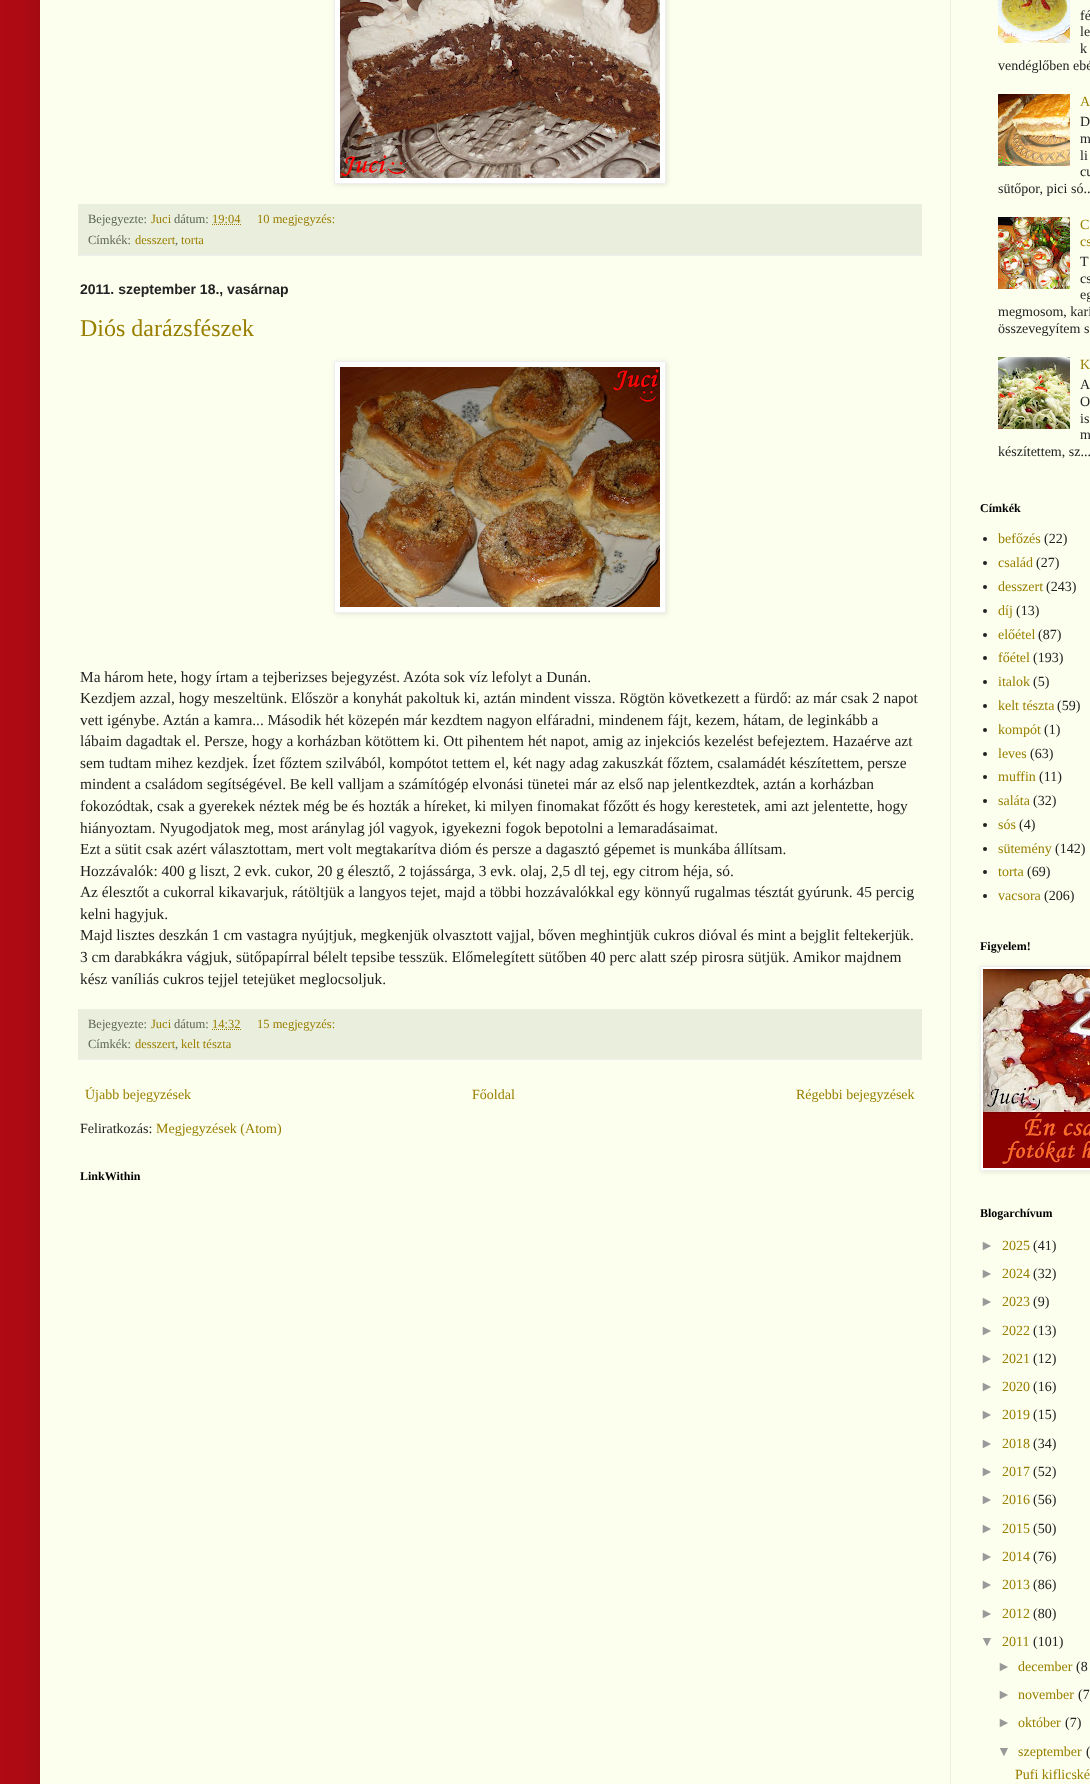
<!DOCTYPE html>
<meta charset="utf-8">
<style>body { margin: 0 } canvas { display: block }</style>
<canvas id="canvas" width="1090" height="1784"></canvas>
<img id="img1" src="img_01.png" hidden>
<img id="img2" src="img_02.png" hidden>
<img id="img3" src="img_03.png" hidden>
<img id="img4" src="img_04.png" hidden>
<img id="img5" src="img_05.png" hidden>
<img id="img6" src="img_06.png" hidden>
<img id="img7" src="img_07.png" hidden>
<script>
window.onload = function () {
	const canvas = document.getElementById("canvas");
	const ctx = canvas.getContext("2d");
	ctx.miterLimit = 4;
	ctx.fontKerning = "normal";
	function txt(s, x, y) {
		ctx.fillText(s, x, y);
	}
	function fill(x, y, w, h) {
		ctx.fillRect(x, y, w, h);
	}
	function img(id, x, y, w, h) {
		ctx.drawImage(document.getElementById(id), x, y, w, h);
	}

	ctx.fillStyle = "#B10B15";
	fill(0, 0, 1090, 1784);
	ctx.fillStyle = "rgba(0, 0, 0, 0.15)";
	ctx.filter = "blur(20px)";
	ctx.beginPath();
	ctx.rect(40, -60, 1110, 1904);
	ctx.fill();
	ctx.filter = "none";
	ctx.fillStyle = "#FCFFEE";
	fill(40, 0, 1050, 1784);
	ctx.fillStyle = "#EEEDDD";
	fill(950, 0, 1, 1784);
	ctx.fillStyle = "rgba(0, 0, 0, 0.1)";
	ctx.filter = "blur(2.5px)";
	ctx.beginPath();
	ctx.rect(335, -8, 332, 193);
	ctx.fill();
	ctx.filter = "none";
	ctx.fillStyle = "#FFFFFF";
	ctx.beginPath();
	ctx.rect(334.5, -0.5, 331, 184);
	ctx.fill();
	ctx.strokeStyle = "#EEEEEE";
	ctx.stroke();
	img("img1", 340, 0, 320, 178);
	ctx.fillStyle = "#EAEEDD";
	fill(78, 204, 844, 51);
	ctx.fillStyle = "#EEEEEE";
	fill(78, 255, 844, 1);
	ctx.beginPath();
	ctx.moveTo(212, 224.5);
	ctx.lineTo(241, 224.5);
	ctx.strokeStyle = "#997F00";
	ctx.setLineDash([1, 1]);
	ctx.stroke();
	ctx.fillStyle = "rgba(0, 0, 0, 0.1)";
	ctx.filter = "blur(2.5px)";
	ctx.beginPath();
	ctx.rect(335, 362, 332, 252);
	ctx.fill();
	ctx.filter = "none";
	ctx.fillStyle = "#FFFFFF";
	ctx.beginPath();
	ctx.rect(334.5, 361.5, 331, 251);
	ctx.fill();
	ctx.strokeStyle = "#EEEEEE";
	ctx.setLineDash([]);
	ctx.stroke();
	img("img2", 340, 367, 320, 240);
	ctx.fillStyle = "#EAEEDD";
	fill(78, 1009, 844, 50);
	ctx.fillStyle = "#EEEEEE";
	fill(78, 1059, 844, 1);
	ctx.beginPath();
	ctx.moveTo(212, 1029.5);
	ctx.lineTo(241, 1029.5);
	ctx.strokeStyle = "#997F00";
	ctx.setLineDash([1, 1]);
	ctx.stroke();
	img("img3", 998, 0, 72, 43);
	img("img4", 998, 94, 72, 72);
	img("img5", 998, 217, 72, 72);
	img("img6", 998, 357, 72, 72);
	ctx.fillStyle = "#222222";
	ctx.beginPath();
	ctx.arc(985, 539, 2, 0, Math.PI * 2);
	ctx.fill();
	ctx.beginPath();
	ctx.arc(985, 563, 2, 0, Math.PI * 2);
	ctx.fill();
	ctx.beginPath();
	ctx.arc(985, 587, 2, 0, Math.PI * 2);
	ctx.fill();
	ctx.beginPath();
	ctx.arc(985, 611, 2, 0, Math.PI * 2);
	ctx.fill();
	ctx.beginPath();
	ctx.arc(985, 635, 2, 0, Math.PI * 2);
	ctx.fill();
	ctx.beginPath();
	ctx.arc(985, 658, 2, 0, Math.PI * 2);
	ctx.fill();
	ctx.beginPath();
	ctx.arc(985, 682, 2, 0, Math.PI * 2);
	ctx.fill();
	ctx.beginPath();
	ctx.arc(985, 706, 2, 0, Math.PI * 2);
	ctx.fill();
	ctx.beginPath();
	ctx.arc(985, 730, 2, 0, Math.PI * 2);
	ctx.fill();
	ctx.beginPath();
	ctx.arc(985, 754, 2, 0, Math.PI * 2);
	ctx.fill();
	ctx.beginPath();
	ctx.arc(985, 777, 2, 0, Math.PI * 2);
	ctx.fill();
	ctx.beginPath();
	ctx.arc(985, 801, 2, 0, Math.PI * 2);
	ctx.fill();
	ctx.beginPath();
	ctx.arc(985, 825, 2, 0, Math.PI * 2);
	ctx.fill();
	ctx.beginPath();
	ctx.arc(985, 849, 2, 0, Math.PI * 2);
	ctx.fill();
	ctx.beginPath();
	ctx.arc(985, 872, 2, 0, Math.PI * 2);
	ctx.fill();
	ctx.beginPath();
	ctx.arc(985, 896, 2, 0, Math.PI * 2);
	ctx.fill();
	ctx.fillStyle = "rgba(0, 0, 0, 0.1)";
	ctx.filter = "blur(2.5px)";
	ctx.beginPath();
	ctx.rect(981, 967, 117, 205);
	ctx.fill();
	ctx.filter = "none";
	ctx.fillStyle = "#FFFFFF";
	ctx.beginPath();
	ctx.rect(980.5, 966.5, 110, 204);
	ctx.fill();
	ctx.strokeStyle = "#EEEEEE";
	ctx.setLineDash([]);
	ctx.stroke();
	img("img7", 983, 969, 107, 199);
	ctx.font = "12.5px Liberation Serif";
	ctx.fillStyle = "#5E6655";
	txt("Bejegyezte:", 88, 223);
	ctx.fillStyle = "#997F00";
	txt("Juci", 151, 223);
	ctx.fillStyle = "#5E6655";
	txt("dátum:", 174, 223);
	ctx.fillStyle = "#997F00";
	txt("19:04", 212, 223);
	txt("10 megjegyzés:", 257, 223);
	ctx.fillStyle = "#5E6655";
	txt("Címkék:", 88, 244);
	ctx.fillStyle = "#997F00";
	txt("desszert", 135, 244);
	ctx.fillStyle = "#5E6655";
	txt(",", 175, 244);
	ctx.fillStyle = "#997F00";
	txt("torta", 181, 244);
	ctx.font = "bold 14px Liberation Sans";
	ctx.fillStyle = "#222222";
	txt("2011. szeptember 18., vasárnap", 80, 294);
	ctx.font = "24px Liberation Serif";
	ctx.fillStyle = "#997F00";
	txt("Diós darázsfészek", 80, 336);
	ctx.font = "15.4px Liberation Serif";
	ctx.fillStyle = "#222222";
	txt("Ma három hete, hogy írtam a tejberizses bejegyzést. Azóta sok víz lefolyt a Dunán.", 80, 682);
	txt("Kezdjem azzal, hogy meszeltünk. Először a konyhát pakoltuk ki, aztán mindent vissza. Rögtön következett a fürdő: az már csak 2 napot", 80, 703);
	txt("vett igénybe. Aztán a kamra... Második hét közepén már kezdtem nagyon elfáradni, mindenem fájt, kezem, hátam, de leginkább a", 80, 725);
	txt("lábaim dagadtak el. Persze, hogy a korházban kötöttem ki. Ott pihentem hét napot, amig az injekciós kezelést befejeztem. Hazaérve azt", 80, 746);
	txt("sem tudtam mihez kezdjek. Ízet főztem szilvából, kompótot tettem el, két nagy adag zakuszkát főztem, csalamádét készítettem, persze", 80, 768);
	txt("mindent a családom segítségével. Be kell valljam a számítógép elvonási tünetei már az első nap jelentkezdtek, aztán a korházban", 80, 789);
	txt("fokozódtak, csak a gyerekek néztek még be és hozták a híreket, ki milyen finomakat főzőtt és hogy kerestetek, ami azt jelentette, hogy", 80, 811);
	txt("hiányoztam. Nyugodjatok meg, most aránylag jól vagyok, igyekezni fogok bepotolni a lemaradásaimat.", 80, 833);
	txt("Ezt a sütit csak azért választottam, mert volt megtakarítva dióm és persze a dagasztó gépemet is munkába állítsam.", 80, 854);
	txt("Hozzávalók: 400 g liszt, 2 evk. cukor, 20 g élesztő, 2 tojássárga, 3 evk. olaj, 2,5 dl tej, egy citrom héja, só.", 80, 876);
	txt("Az élesztőt a cukorral kikavarjuk, rátöltjük a langyos tejet, majd a többi hozzávalókkal egy könnyű rugalmas tésztát gyúrunk. 45 percig", 80, 897);
	txt("kelni hagyjuk.", 80, 919);
	txt("Majd lisztes deszkán 1 cm vastagra nyújtjuk, megkenjük olvasztott vajjal, bőven meghintjük cukros dióval és mint a bejglit feltekerjük.", 80, 940);
	txt("3 cm darabkákra vágjuk, sütőpapírral bélelt tepsibe tesszük. Előmelegített sütőben 40 perc alatt szép pirosra sütjük. Amikor majdnem", 80, 962);
	txt("kész vaníliás cukros tejjel tetejüket meglocsoljuk.", 80, 984);
	ctx.font = "12.5px Liberation Serif";
	ctx.fillStyle = "#5E6655";
	txt("Bejegyezte:", 88, 1028);
	ctx.fillStyle = "#997F00";
	txt("Juci", 151, 1028);
	ctx.fillStyle = "#5E6655";
	txt("dátum:", 174, 1028);
	ctx.fillStyle = "#997F00";
	txt("14:32", 212, 1028);
	txt("15 megjegyzés:", 257, 1028);
	ctx.fillStyle = "#5E6655";
	txt("Címkék:", 88, 1048);
	ctx.fillStyle = "#997F00";
	txt("desszert", 135, 1048);
	ctx.fillStyle = "#5E6655";
	txt(",", 175, 1048);
	ctx.fillStyle = "#997F00";
	txt("kelt tészta", 181, 1048);
	ctx.font = "14px Liberation Serif";
	txt("Újabb bejegyzések", 85, 1099);
	txt("Főoldal", 472, 1099);
	txt("Régebbi bejegyzések", 796, 1099);
	ctx.fillStyle = "#222222";
	txt("Feliratkozás:", 80, 1133);
	ctx.fillStyle = "#997F00";
	txt("Megjegyzések (Atom)", 156, 1133);
	ctx.font = "bold 12px Liberation Serif";
	ctx.fillStyle = "#000000";
	txt("LinkWithin", 80, 1180);
	ctx.font = "14px Liberation Serif";
	ctx.fillStyle = "#222222";
	txt("fé", 1080, 20);
	txt("le", 1080, 36);
	txt("k", 1080, 53);
	txt("vendéglőben ebé", 998, 70);
	ctx.fillStyle = "#997F00";
	txt("A", 1080, 106);
	ctx.fillStyle = "#222222";
	txt("D", 1080, 126);
	txt("m", 1080, 143);
	txt("li", 1080, 160);
	txt("cu", 1080, 176);
	txt("sütőpor, pici só..", 998, 193);
	ctx.fillStyle = "#997F00";
	txt("C", 1080, 229);
	txt("cs", 1080, 246);
	ctx.fillStyle = "#222222";
	txt("T", 1080, 266);
	txt("cs", 1080, 283);
	txt("eg", 1080, 299);
	txt("megmosom, kari", 998, 316);
	txt("összevegyítem s", 998, 333);
	ctx.fillStyle = "#997F00";
	txt("K", 1080, 369);
	ctx.fillStyle = "#222222";
	txt("A", 1080, 389);
	txt("O", 1080, 406);
	txt("is", 1080, 423);
	txt("m", 1080, 439);
	txt("készítettem, sz...", 998, 456);
	ctx.font = "bold 12px Liberation Serif";
	ctx.fillStyle = "#000000";
	txt("Címkék", 980, 512);
	ctx.font = "14px Liberation Serif";
	ctx.fillStyle = "#997F00";
	txt("befőzés", 998, 543);
	ctx.fillStyle = "#222222";
	txt("(22)", 1044, 543);
	ctx.fillStyle = "#997F00";
	txt("család", 998, 567);
	ctx.fillStyle = "#222222";
	txt("(27)", 1036, 567);
	ctx.fillStyle = "#997F00";
	txt("desszert", 998, 591);
	ctx.fillStyle = "#222222";
	txt("(243)", 1046, 591);
	ctx.fillStyle = "#997F00";
	txt("díj", 998, 615);
	ctx.fillStyle = "#222222";
	txt("(13)", 1016, 615);
	ctx.fillStyle = "#997F00";
	txt("előétel", 998, 639);
	ctx.fillStyle = "#222222";
	txt("(87)", 1038, 639);
	ctx.fillStyle = "#997F00";
	txt("főétel", 998, 662);
	ctx.fillStyle = "#222222";
	txt("(193)", 1033, 662);
	ctx.fillStyle = "#997F00";
	txt("italok", 998, 686);
	ctx.fillStyle = "#222222";
	txt("(5)", 1033, 686);
	ctx.fillStyle = "#997F00";
	txt("kelt tészta", 998, 710);
	ctx.fillStyle = "#222222";
	txt("(59)", 1057, 710);
	ctx.fillStyle = "#997F00";
	txt("kompót", 998, 734);
	ctx.fillStyle = "#222222";
	txt("(1)", 1044, 734);
	ctx.fillStyle = "#997F00";
	txt("leves", 998, 758);
	ctx.fillStyle = "#222222";
	txt("(63)", 1030, 758);
	ctx.fillStyle = "#997F00";
	txt("muffin", 998, 781);
	ctx.fillStyle = "#222222";
	txt("(11)", 1039, 781);
	ctx.fillStyle = "#997F00";
	txt("saláta", 998, 805);
	ctx.fillStyle = "#222222";
	txt("(32)", 1033, 805);
	ctx.fillStyle = "#997F00";
	txt("sós", 998, 829);
	ctx.fillStyle = "#222222";
	txt("(4)", 1019, 829);
	ctx.fillStyle = "#997F00";
	txt("sütemény", 998, 853);
	ctx.fillStyle = "#222222";
	txt("(142)", 1055, 853);
	ctx.fillStyle = "#997F00";
	txt("torta", 998, 876);
	ctx.fillStyle = "#222222";
	txt("(69)", 1027, 876);
	ctx.fillStyle = "#997F00";
	txt("vacsora", 998, 900);
	ctx.fillStyle = "#222222";
	txt("(206)", 1044, 900);
	ctx.font = "bold 12px Liberation Serif";
	ctx.fillStyle = "#000000";
	txt("Figyelem!", 980, 950);
	txt("Blogarchívum", 980, 1217);
	ctx.font = "14px Liberation Sans";
	ctx.fillStyle = "#999999";
	txt("►", 980, 1250);
	ctx.font = "14px Liberation Serif";
	ctx.fillStyle = "#997F00";
	txt("2025", 1002, 1250);
	ctx.fillStyle = "#222222";
	txt("(41)", 1033, 1250);
	ctx.font = "14px Liberation Sans";
	ctx.fillStyle = "#999999";
	txt("►", 980, 1278);
	ctx.font = "14px Liberation Serif";
	ctx.fillStyle = "#997F00";
	txt("2024", 1002, 1278);
	ctx.fillStyle = "#222222";
	txt("(32)", 1033, 1278);
	ctx.font = "14px Liberation Sans";
	ctx.fillStyle = "#999999";
	txt("►", 980, 1306);
	ctx.font = "14px Liberation Serif";
	ctx.fillStyle = "#997F00";
	txt("2023", 1002, 1306);
	ctx.fillStyle = "#222222";
	txt("(9)", 1033, 1306);
	ctx.font = "14px Liberation Sans";
	ctx.fillStyle = "#999999";
	txt("►", 980, 1335);
	ctx.font = "14px Liberation Serif";
	ctx.fillStyle = "#997F00";
	txt("2022", 1002, 1335);
	ctx.fillStyle = "#222222";
	txt("(13)", 1033, 1335);
	ctx.font = "14px Liberation Sans";
	ctx.fillStyle = "#999999";
	txt("►", 980, 1363);
	ctx.font = "14px Liberation Serif";
	ctx.fillStyle = "#997F00";
	txt("2021", 1002, 1363);
	ctx.fillStyle = "#222222";
	txt("(12)", 1033, 1363);
	ctx.font = "14px Liberation Sans";
	ctx.fillStyle = "#999999";
	txt("►", 980, 1391);
	ctx.font = "14px Liberation Serif";
	ctx.fillStyle = "#997F00";
	txt("2020", 1002, 1391);
	ctx.fillStyle = "#222222";
	txt("(16)", 1033, 1391);
	ctx.font = "14px Liberation Sans";
	ctx.fillStyle = "#999999";
	txt("►", 980, 1419);
	ctx.font = "14px Liberation Serif";
	ctx.fillStyle = "#997F00";
	txt("2019", 1002, 1419);
	ctx.fillStyle = "#222222";
	txt("(15)", 1033, 1419);
	ctx.font = "14px Liberation Sans";
	ctx.fillStyle = "#999999";
	txt("►", 980, 1448);
	ctx.font = "14px Liberation Serif";
	ctx.fillStyle = "#997F00";
	txt("2018", 1002, 1448);
	ctx.fillStyle = "#222222";
	txt("(34)", 1033, 1448);
	ctx.font = "14px Liberation Sans";
	ctx.fillStyle = "#999999";
	txt("►", 980, 1476);
	ctx.font = "14px Liberation Serif";
	ctx.fillStyle = "#997F00";
	txt("2017", 1002, 1476);
	ctx.fillStyle = "#222222";
	txt("(52)", 1033, 1476);
	ctx.font = "14px Liberation Sans";
	ctx.fillStyle = "#999999";
	txt("►", 980, 1504);
	ctx.font = "14px Liberation Serif";
	ctx.fillStyle = "#997F00";
	txt("2016", 1002, 1504);
	ctx.fillStyle = "#222222";
	txt("(56)", 1033, 1504);
	ctx.font = "14px Liberation Sans";
	ctx.fillStyle = "#999999";
	txt("►", 980, 1533);
	ctx.font = "14px Liberation Serif";
	ctx.fillStyle = "#997F00";
	txt("2015", 1002, 1533);
	ctx.fillStyle = "#222222";
	txt("(50)", 1033, 1533);
	ctx.font = "14px Liberation Sans";
	ctx.fillStyle = "#999999";
	txt("►", 980, 1561);
	ctx.font = "14px Liberation Serif";
	ctx.fillStyle = "#997F00";
	txt("2014", 1002, 1561);
	ctx.fillStyle = "#222222";
	txt("(76)", 1033, 1561);
	ctx.font = "14px Liberation Sans";
	ctx.fillStyle = "#999999";
	txt("►", 980, 1589);
	ctx.font = "14px Liberation Serif";
	ctx.fillStyle = "#997F00";
	txt("2013", 1002, 1589);
	ctx.fillStyle = "#222222";
	txt("(86)", 1033, 1589);
	ctx.font = "14px Liberation Sans";
	ctx.fillStyle = "#999999";
	txt("►", 980, 1618);
	ctx.font = "14px Liberation Serif";
	ctx.fillStyle = "#997F00";
	txt("2012", 1002, 1618);
	ctx.fillStyle = "#222222";
	txt("(80)", 1033, 1618);
	ctx.font = "14px Liberation Sans";
	ctx.fillStyle = "#999999";
	txt("▼", 980, 1646);
	ctx.font = "14px Liberation Serif";
	ctx.fillStyle = "#997F00";
	txt("2011", 1002, 1646);
	ctx.fillStyle = "#222222";
	txt("(101)", 1033, 1646);
	ctx.font = "14px Liberation Sans";
	ctx.fillStyle = "#999999";
	txt("►", 997, 1671);
	ctx.font = "14px Liberation Serif";
	ctx.fillStyle = "#997F00";
	txt("december", 1018, 1671);
	ctx.fillStyle = "#222222";
	txt("(8", 1076, 1671);
	ctx.font = "14px Liberation Sans";
	ctx.fillStyle = "#999999";
	txt("►", 997, 1699);
	ctx.font = "14px Liberation Serif";
	ctx.fillStyle = "#997F00";
	txt("november", 1018, 1699);
	ctx.fillStyle = "#222222";
	txt("(7", 1078, 1699);
	ctx.font = "14px Liberation Sans";
	ctx.fillStyle = "#999999";
	txt("►", 997, 1727);
	ctx.font = "14px Liberation Serif";
	ctx.fillStyle = "#997F00";
	txt("október", 1018, 1727);
	ctx.fillStyle = "#222222";
	txt("(7)", 1065, 1727);
	ctx.font = "14px Liberation Sans";
	ctx.fillStyle = "#999999";
	txt("▼", 997, 1756);
	ctx.font = "14px Liberation Serif";
	ctx.fillStyle = "#997F00";
	txt("szeptember", 1018, 1756);
	ctx.fillStyle = "#222222";
	txt("(", 1086, 1756);
	ctx.fillStyle = "#997F00";
	txt("Pufi kiflicské", 1015, 1779);
};
</script>
